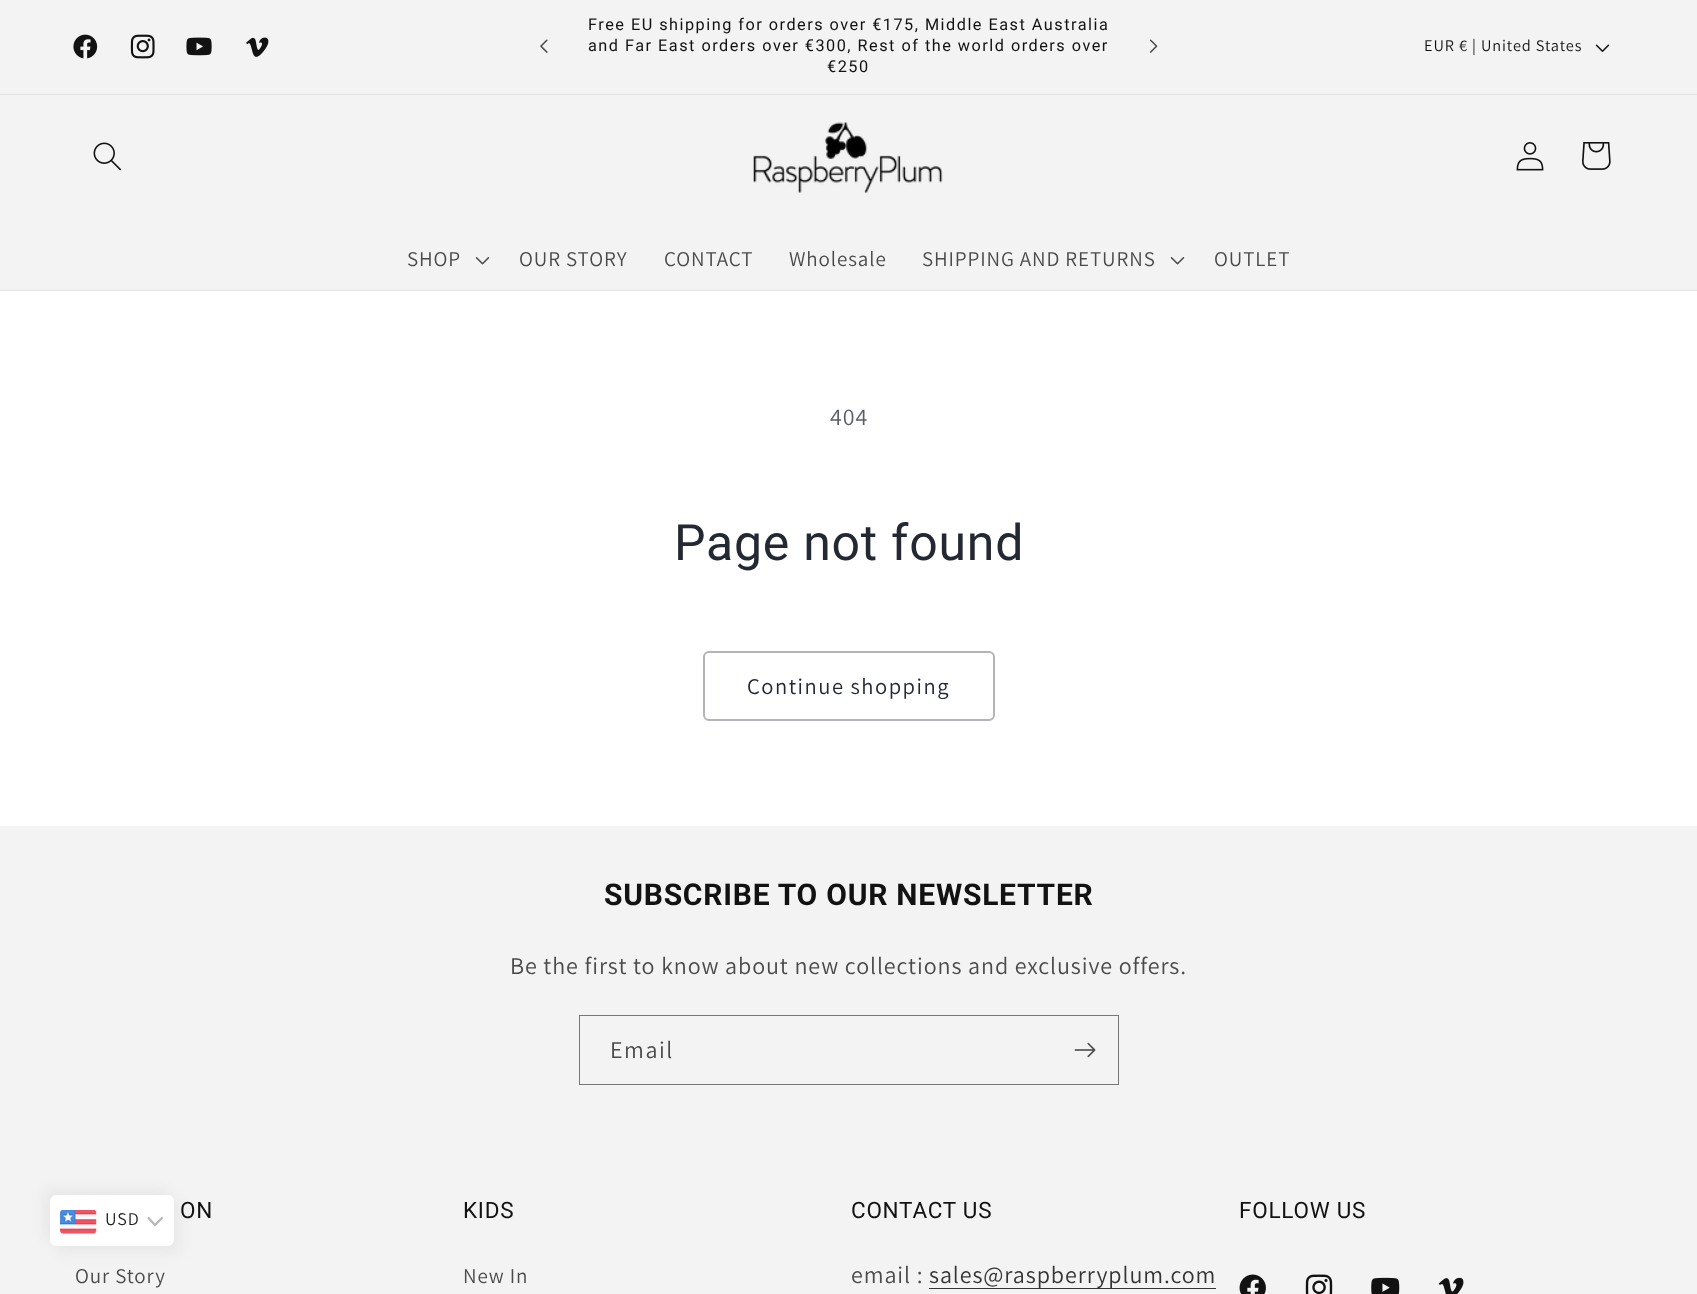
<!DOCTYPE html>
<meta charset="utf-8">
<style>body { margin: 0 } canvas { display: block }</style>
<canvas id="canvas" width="1697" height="1294"></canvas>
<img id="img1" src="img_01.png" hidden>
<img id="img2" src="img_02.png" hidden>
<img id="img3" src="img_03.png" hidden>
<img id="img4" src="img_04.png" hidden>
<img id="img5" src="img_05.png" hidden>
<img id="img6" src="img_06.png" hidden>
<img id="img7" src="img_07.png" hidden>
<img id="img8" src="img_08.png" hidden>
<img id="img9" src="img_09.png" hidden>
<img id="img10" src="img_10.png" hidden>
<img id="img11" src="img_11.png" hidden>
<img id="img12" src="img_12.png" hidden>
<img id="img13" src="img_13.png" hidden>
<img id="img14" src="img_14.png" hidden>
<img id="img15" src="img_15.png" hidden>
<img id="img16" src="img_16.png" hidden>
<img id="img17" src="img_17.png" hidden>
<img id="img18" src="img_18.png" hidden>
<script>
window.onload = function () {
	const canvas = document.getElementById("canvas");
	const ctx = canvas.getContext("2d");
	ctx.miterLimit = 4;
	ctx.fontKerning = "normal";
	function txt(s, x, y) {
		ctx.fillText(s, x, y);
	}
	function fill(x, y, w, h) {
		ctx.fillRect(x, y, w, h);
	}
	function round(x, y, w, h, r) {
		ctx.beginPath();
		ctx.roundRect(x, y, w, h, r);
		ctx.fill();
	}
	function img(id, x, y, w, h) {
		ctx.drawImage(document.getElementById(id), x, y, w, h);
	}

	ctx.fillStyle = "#FFFFFF";
	fill(0, 0, 1697, 1294);
	ctx.fillStyle = "#F3F3F3";
	fill(0, 0, 1697, 94);
	ctx.fillStyle = "#E1E1E1";
	fill(0, 94, 1697, 1);
	img("img1", 73, 34, 25, 25);
	img("img2", 130, 34, 25, 25);
	img("img3", 186, 37, 26, 19);
	img("img4", 246, 37, 23, 20);
	img("img5", 540, 39, 8, 14);
	img("img6", 1149, 39, 9, 14);
	img("img7", 1595, 44, 15, 8);
	ctx.fillStyle = "#F3F3F3";
	fill(0, 95, 1697, 195);
	ctx.fillStyle = "#E1E1E1";
	fill(0, 290, 1697, 1);
	img("img8", 93, 142, 28, 29);
	img("img9", 753, 122, 190, 71);
	img("img10", 1516, 142, 28, 29);
	img("img11", 1582, 142, 29, 28);
	img("img12", 475, 257, 15, 8);
	img("img12", 1170, 257, 15, 8);
	ctx.beginPath();
	ctx.roundRect(704, 652, 290, 68, 5);
	ctx.strokeStyle = "#B2B4B8";
	ctx.lineWidth = 2;
	ctx.stroke();
	ctx.fillStyle = "#F3F3F3";
	fill(0, 826, 1697, 468);
	ctx.strokeStyle = "#777777";
	ctx.lineWidth = 1;
	ctx.strokeRect(579.5, 1015.5, 539, 69);
	img("img13", 1074, 1042, 22, 16);
	ctx.fillStyle = "#343434";
	fill(929, 1288, 287, 1);
	img("img14", 1239, 1274, 27, 20);
	img("img15", 1305, 1274, 28, 20);
	img("img16", 1371, 1277, 29, 17);
	img("img17", 1438, 1277, 26, 17);
	ctx.fillStyle = "#E8E8E8";
	ctx.filter = "blur(6px)";
	ctx.beginPath();
	ctx.roundRect(44, 1189, 124, 51, 6);
	ctx.fill();
	ctx.filter = "none";
	ctx.filter = "blur(6px)";
	ctx.beginPath();
	ctx.roundRect(56, 1201, 124, 52, 6);
	ctx.fill();
	ctx.filter = "none";
	ctx.fillStyle = "#FFFFFF";
	round(50, 1195, 124, 51, 6);
	img("img18", 60, 1210, 37, 24);
	ctx.beginPath();
	ctx.moveTo(148.5, 1218);
	ctx.lineTo(155, 1225);
	ctx.lineTo(162, 1218);
	ctx.strokeStyle = "#B7B7B7";
	ctx.lineWidth = 2.3;
	ctx.lineCap = "round";
	ctx.lineJoin = "round";
	ctx.stroke();
	ctx.letterSpacing = "1.5px";
	ctx.font = "16.25px Roboto";
	ctx.fillStyle = "#121212";
	txt("Free EU shipping for orders over €175, Middle East Australia", 588, 30);
	txt("and Far East orders over €300, Rest of the world orders over", 588, 51);
	txt("€250", 827, 72);
	ctx.letterSpacing = "0.9px";
	ctx.font = "16.25px Assistant";
	txt("EUR € | United States", 1424, 51);
	ctx.font = "21px Assistant";
	ctx.fillStyle = "#4A4A4A";
	txt("SHOP", 407, 266);
	txt("OUR STORY", 519, 266);
	txt("CONTACT", 664, 266);
	txt("Wholesale", 789, 266);
	txt("SHIPPING AND RETURNS", 922, 266);
	txt("OUTLET", 1214, 266);
	ctx.font = "24px Assistant";
	ctx.fillStyle = "#5B5E66";
	txt("404", 830, 425);
	ctx.letterSpacing = "0.75px";
	ctx.font = "50px Roboto";
	ctx.fillStyle = "#242833";
	txt("Page not found", 674, 560);
	ctx.letterSpacing = "1.5px";
	ctx.font = "22.5px Assistant";
	txt("Continue shopping", 747, 694);
	ctx.letterSpacing = "0.75px";
	ctx.font = "bold 30px Roboto";
	ctx.fillStyle = "#121212";
	txt("SUBSCRIBE TO OUR NEWSLETTER", 604, 905);
	ctx.letterSpacing = "0.9px";
	ctx.font = "24px Assistant";
	ctx.fillStyle = "#4A4A4A";
	txt("Be the first to know about new collections and exclusive offers.", 510, 974);
	ctx.letterSpacing = "1.5px";
	txt("Email", 610, 1058);
	ctx.letterSpacing = "0.75px";
	ctx.font = "22.5px Roboto";
	ctx.fillStyle = "#121212";
	txt("ON", 180, 1218);
	ctx.letterSpacing = "0.9px";
	ctx.font = "21px Assistant";
	ctx.fillStyle = "#4A4A4A";
	txt("Our Story", 75, 1283);
	ctx.letterSpacing = "0.75px";
	ctx.font = "22.5px Roboto";
	ctx.fillStyle = "#121212";
	txt("KIDS", 463, 1218);
	ctx.letterSpacing = "0.9px";
	ctx.font = "21px Assistant";
	ctx.fillStyle = "#4A4A4A";
	txt("New In", 463, 1283);
	ctx.letterSpacing = "0.75px";
	ctx.font = "22.5px Roboto";
	ctx.fillStyle = "#121212";
	txt("CONTACT US", 851, 1218);
	ctx.letterSpacing = "0.9px";
	ctx.font = "24px Assistant";
	ctx.fillStyle = "#4A4A4A";
	txt("email :", 851, 1283);
	ctx.fillStyle = "#343434";
	txt("sales@raspberryplum.com", 929, 1283);
	ctx.letterSpacing = "0.75px";
	ctx.font = "22.5px Roboto";
	ctx.fillStyle = "#121212";
	txt("FOLLOW US", 1239, 1218);
	ctx.letterSpacing = "0.9px";
	ctx.font = "18px Assistant";
	ctx.fillStyle = "#1E1E1E";
	txt("USD", 105, 1225);
};
</script>
